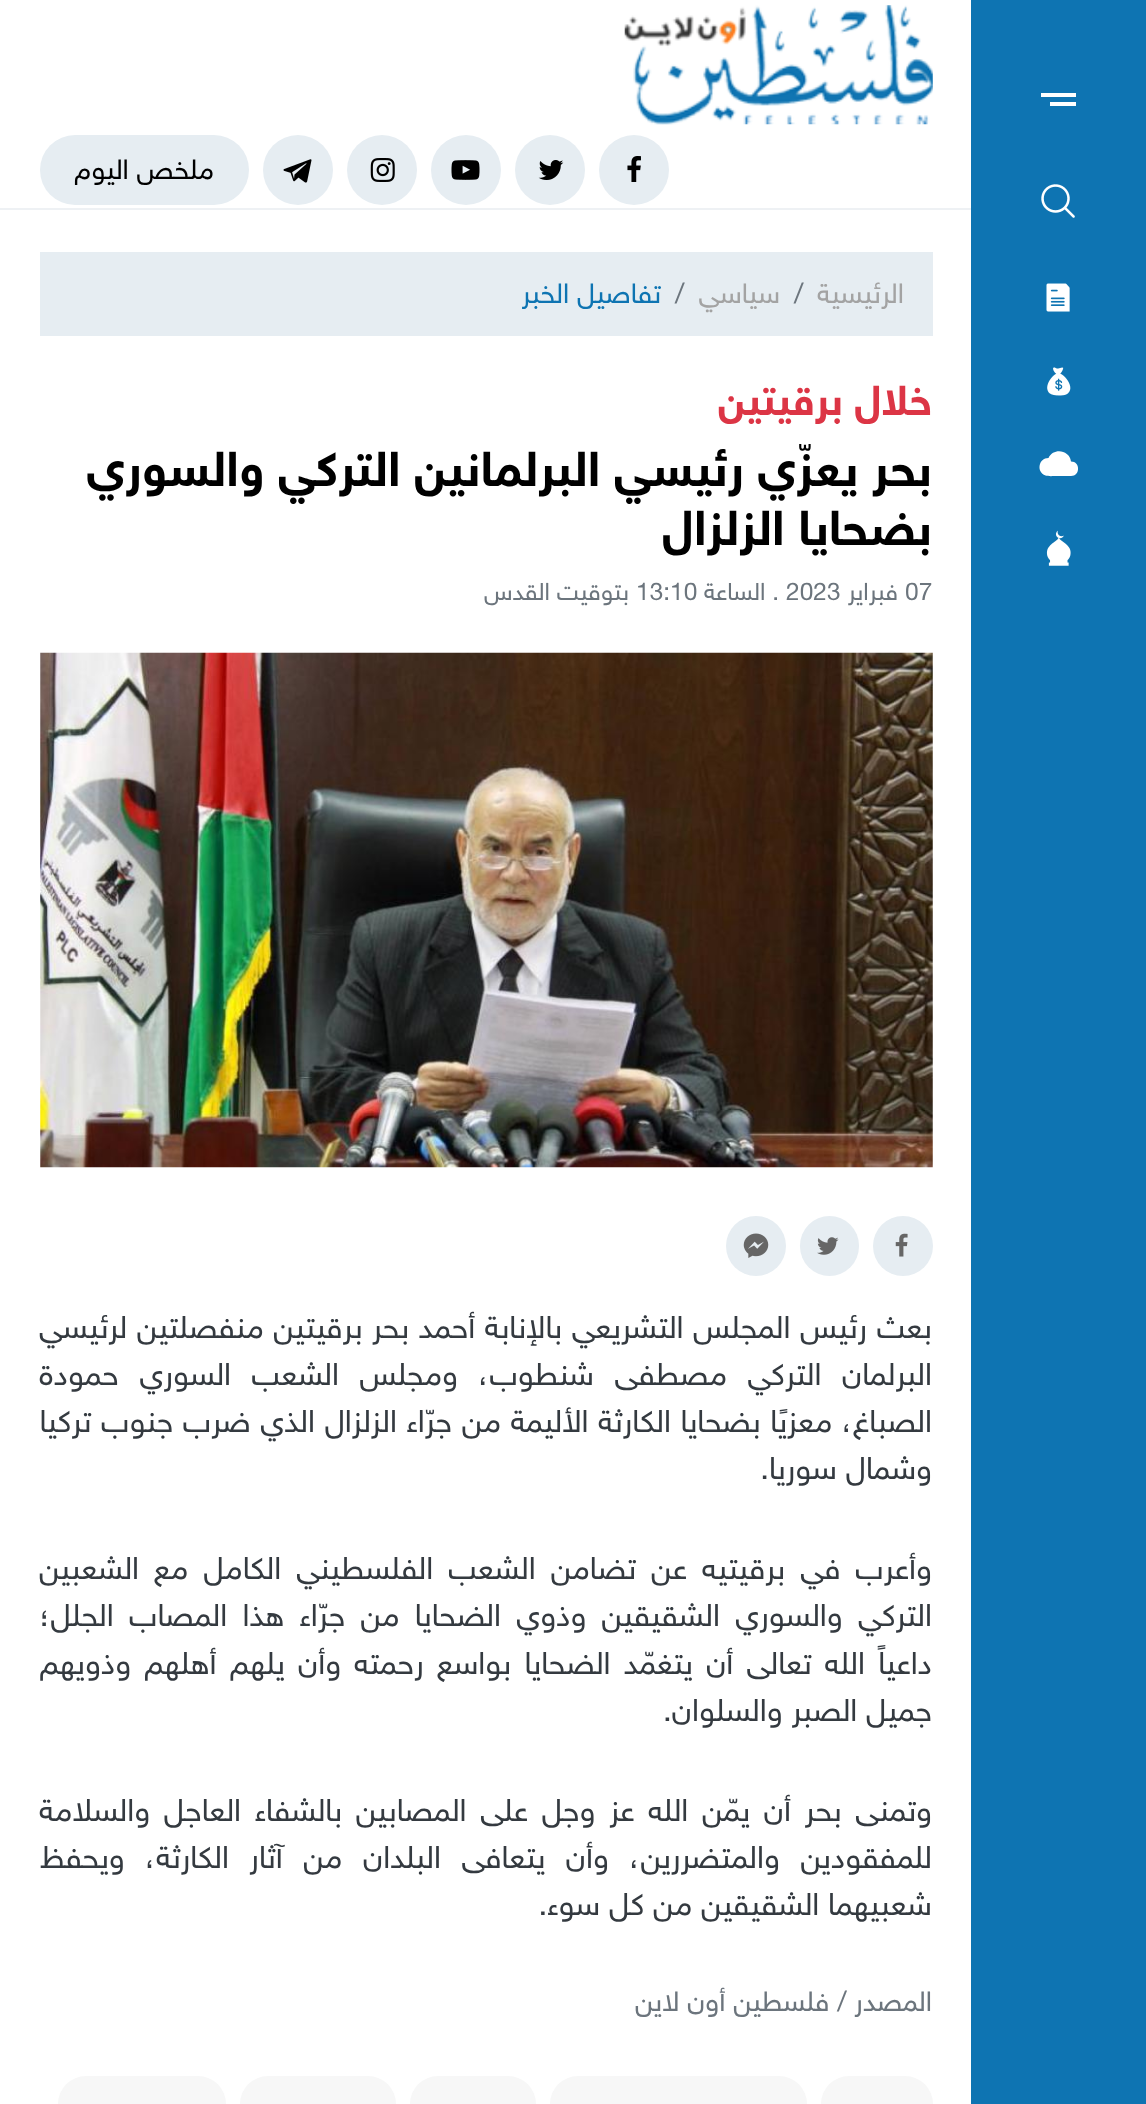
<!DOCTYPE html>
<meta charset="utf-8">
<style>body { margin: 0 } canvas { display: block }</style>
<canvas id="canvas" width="1146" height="2104"></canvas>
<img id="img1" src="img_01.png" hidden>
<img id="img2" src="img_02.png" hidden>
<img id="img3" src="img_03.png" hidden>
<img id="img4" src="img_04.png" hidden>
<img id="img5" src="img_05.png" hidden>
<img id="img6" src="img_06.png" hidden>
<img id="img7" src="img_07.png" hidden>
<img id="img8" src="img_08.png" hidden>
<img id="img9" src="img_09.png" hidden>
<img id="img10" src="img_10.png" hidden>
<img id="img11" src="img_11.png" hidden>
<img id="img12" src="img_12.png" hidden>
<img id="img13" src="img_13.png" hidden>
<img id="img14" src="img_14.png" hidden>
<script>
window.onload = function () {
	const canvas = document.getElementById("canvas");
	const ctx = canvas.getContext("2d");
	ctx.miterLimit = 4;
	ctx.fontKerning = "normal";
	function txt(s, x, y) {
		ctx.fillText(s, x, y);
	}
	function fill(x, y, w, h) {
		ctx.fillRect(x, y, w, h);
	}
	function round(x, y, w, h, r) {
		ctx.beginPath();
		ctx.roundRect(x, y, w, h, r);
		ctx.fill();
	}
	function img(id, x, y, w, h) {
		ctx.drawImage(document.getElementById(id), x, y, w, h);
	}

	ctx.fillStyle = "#FFFFFF";
	fill(0, 0, 1146, 2104);
	ctx.fillStyle = "#0E74B2";
	fill(971, 0, 175, 2104);
	ctx.fillStyle = "#FFFFFF";
	fill(1041, 93, 35, 4);
	fill(1050, 102, 26, 4);
	img("img1", 1041, 184, 34, 34);
	img("img2", 1046, 283, 24, 29);
	img("img3", 1047, 367, 24, 29);
	ctx.beginPath();
	ctx.moveTo(1071, 476);
	ctx.bezierCurveTo(1080.5, 476, 1080.5, 461.5, 1071, 461.5);
	ctx.bezierCurveTo(1069.5, 450, 1053.5, 447.5, 1048.5, 458);
	ctx.bezierCurveTo(1038.5, 458, 1036, 472, 1045.5, 475.5);
	ctx.bezierCurveTo(1048, 476.5, 1054, 476, 1056, 476);
	ctx.closePath();
	ctx.fill();
	img("img4", 1046, 530, 25, 36);
	ctx.fillStyle = "#EEF1F4";
	fill(0, 208, 971, 2);
	img("img5", 624, 5, 309, 120);
	ctx.fillStyle = "#E6EDF2";
	ctx.beginPath();
	ctx.arc(634, 170, 35, 0, Math.PI * 2);
	ctx.fill();
	img("img6", 627, 156, 14, 26);
	ctx.beginPath();
	ctx.arc(550, 170, 35, 0, Math.PI * 2);
	ctx.fill();
	img("img7", 538, 160, 26, 20);
	ctx.beginPath();
	ctx.arc(466, 170, 35, 0, Math.PI * 2);
	ctx.fill();
	img("img8", 451, 160, 29, 20);
	ctx.beginPath();
	ctx.arc(382, 170, 35, 0, Math.PI * 2);
	ctx.fill();
	img("img9", 370, 158, 25, 24);
	ctx.beginPath();
	ctx.arc(298, 170, 35, 0, Math.PI * 2);
	ctx.fill();
	img("img10", 283, 159, 29, 24);
	round(40, 135, 209, 70, 35);
	fill(40, 252, 893, 84);
	img("img11", 40, 652, 893, 516);
	ctx.beginPath();
	ctx.arc(903, 1246, 30, 0, Math.PI * 2);
	ctx.fill();
	img("img12", 895, 1233, 13, 24);
	round(800, 1216, 59, 60, 29.5);
	img("img13", 817, 1237, 22, 18);
	ctx.beginPath();
	ctx.arc(756, 1246, 30, 0, Math.PI * 2);
	ctx.fill();
	img("img14", 743, 1233, 26, 25);
	ctx.fillStyle = "#F7F7F7";
	round(821, 2076, 112, 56, 28);
	round(550, 2076, 257, 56, 28);
	round(410, 2076, 126, 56, 28);
	round(240, 2076, 156, 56, 28);
	round(58, 2076, 168, 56, 28);
	ctx.direction = "rtl";
	ctx.font = "28px 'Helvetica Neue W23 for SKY'";
	ctx.fillStyle = "#000000";
	txt("ملخص اليوم", 214, 179);
	ctx.fillStyle = "#A3A3A3";
	txt("الرئيسية", 904, 303);
	ctx.direction = "ltr";
	ctx.fillStyle = "#6C757D";
	txt("/", 794, 303);
	ctx.direction = "rtl";
	ctx.fillStyle = "#A3A3A3";
	txt("سياسي", 780, 303);
	ctx.direction = "ltr";
	ctx.fillStyle = "#6C757D";
	txt("/", 675, 303);
	ctx.direction = "rtl";
	ctx.fillStyle = "#0E74B2";
	txt("تفاصيل الخبر", 661, 303);
	ctx.font = "bold 42px 'Helvetica Neue W23 for SKY'";
	ctx.fillStyle = "#DC3545";
	txt("خلال برقيتين", 932, 415);
	ctx.font = "bold 49px 'Helvetica Neue W23 for SKY'";
	ctx.fillStyle = "#000000";
	txt("بحر يعزّي رئيسي البرلمانين التركي والسوري", 932, 486);
	txt("بضحايا الزلزال", 932, 545);
	ctx.direction = "ltr";
	ctx.font = "24.5px 'Helvetica Neue W23 for SKY'";
	ctx.fillStyle = "#6C757D";
	txt("07", 905, 600);
	ctx.direction = "rtl";
	txt("فبراير", 898, 600);
	ctx.direction = "ltr";
	txt("2023", 786, 600);
	ctx.direction = "rtl";
	txt(". الساعة", 779, 600);
	ctx.direction = "ltr";
	txt("13:10", 636, 600);
	ctx.direction = "rtl";
	txt("بتوقيت القدس", 629, 600);
	ctx.wordSpacing = "0.75px";
	ctx.font = "31.5px 'Helvetica Neue W23 for SKY'";
	ctx.fillStyle = "#343A40";
	txt("بعث رئيس المجلس التشريعي بالإنابة أحمد بحر برقيتين منفصلتين لرئيسي", 932, 1338);
	ctx.wordSpacing = "11.75px";
	txt("البرلمان التركي مصطفى شنطوب، ومجلس الشعب السوري حمودة", 932, 1385);
	ctx.wordSpacing = "0.9px";
	txt("الصباغ، معزيًا بضحايا الكارثة الأليمة من جرّاء الزلزال الذي ضرب جنوب تركيا", 932, 1432);
	ctx.wordSpacing = "0px";
	txt("وشمال سوريا.", 932, 1479);
	ctx.wordSpacing = "6.25px";
	txt("وأعرب في برقيتيه عن تضامن الشعب الفلسطيني الكامل مع الشعبين", 932, 1579);
	ctx.wordSpacing = "6.5px";
	txt("التركي والسوري الشقيقين وذوي الضحايا من جرّاء هذا المصاب الجلل؛", 932, 1626);
	ctx.wordSpacing = "4.4px";
	txt("داعياً الله تعالى أن يتغمّد الضحايا بواسع رحمته وأن يلهم أهلهم وذويهم", 932, 1674);
	ctx.wordSpacing = "0px";
	txt("جميل الصبر والسلوان.", 932, 1721);
	ctx.wordSpacing = "4.9px";
	txt("وتمنى بحر أن يمّن الله عز وجل على المصابين بالشفاء العاجل والسلامة", 932, 1821);
	ctx.wordSpacing = "11.75px";
	txt("للمفقودين والمتضررين، وأن يتعافى البلدان من آثار الكارثة، ويحفظ", 932, 1868);
	ctx.wordSpacing = "0px";
	txt("شعبيهما الشقيقين من كل سوء.", 932, 1915);
	ctx.font = "28px 'Helvetica Neue W23 for SKY'";
	ctx.fillStyle = "#6C757D";
	txt("المصدر / فلسطين أون لاين", 932, 2011);
};
</script>
